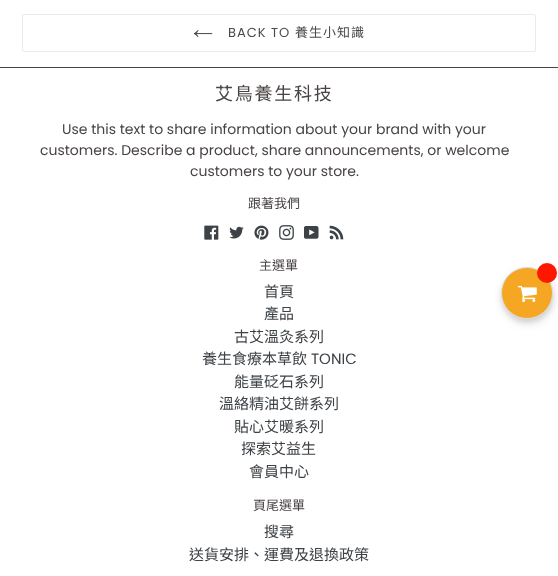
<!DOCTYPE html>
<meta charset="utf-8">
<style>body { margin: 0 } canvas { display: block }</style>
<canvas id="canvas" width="558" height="576"></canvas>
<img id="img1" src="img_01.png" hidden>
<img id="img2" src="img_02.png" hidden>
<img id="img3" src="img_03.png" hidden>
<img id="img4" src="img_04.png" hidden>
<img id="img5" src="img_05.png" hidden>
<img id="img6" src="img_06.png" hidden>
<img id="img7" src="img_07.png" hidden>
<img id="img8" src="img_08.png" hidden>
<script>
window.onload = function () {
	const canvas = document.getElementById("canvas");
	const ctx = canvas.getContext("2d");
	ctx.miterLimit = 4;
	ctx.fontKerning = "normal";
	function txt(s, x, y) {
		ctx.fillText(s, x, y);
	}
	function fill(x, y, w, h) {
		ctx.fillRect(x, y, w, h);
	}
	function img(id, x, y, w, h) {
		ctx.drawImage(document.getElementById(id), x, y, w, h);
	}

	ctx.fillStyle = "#FFFFFF";
	fill(0, 0, 558, 576);
	ctx.beginPath();
	ctx.roundRect(22.5, 14.5, 513, 37, 1.5);
	ctx.strokeStyle = "#EBEBEB";
	ctx.stroke();
	img("img1", 193, 30, 20, 8);
	ctx.fillStyle = "#494343";
	fill(0, 67, 558, 1);
	img("img2", 204, 225, 15, 15);
	img("img3", 229, 226, 15, 13);
	img("img4", 254, 225, 15, 15);
	img("img5", 279, 225, 15, 15);
	img("img6", 304, 226, 15, 13);
	img("img7", 329, 225, 15, 15);
	ctx.fillStyle = "rgba(0, 0, 0, 0.08)";
	ctx.filter = "blur(2px)";
	ctx.beginPath();
	ctx.roundRect(501, 271, 52, 52, 26);
	ctx.fill();
	ctx.filter = "none";
	ctx.fillStyle = "rgba(0, 0, 0, 0.12)";
	ctx.filter = "blur(5px)";
	ctx.beginPath();
	ctx.roundRect(502, 271, 52, 52, 26);
	ctx.fill();
	ctx.filter = "none";
	ctx.fillStyle = "#F5A623";
	ctx.beginPath();
	ctx.arc(527, 293, 25.5, 0, Math.PI * 2);
	ctx.fill();
	ctx.strokeStyle = "#DDDDDD";
	ctx.stroke();
	ctx.fillStyle = "#FF1800";
	ctx.beginPath();
	ctx.arc(547, 273, 10, 0, Math.PI * 2);
	ctx.fill();
	img("img8", 517, 285, 20, 17);
	ctx.letterSpacing = "1px";
	ctx.font = "13px Poppins";
	ctx.fillStyle = "#4A4A4A";
	txt("BACK TO", 228, 37);
	ctx.font = "13px Noto Sans CJK TC";
	txt("養生小知識", 295, 37);
	ctx.letterSpacing = "1.75px";
	ctx.font = "18px Noto Sans CJK TC";
	ctx.fillStyle = "#494343";
	txt("艾鳥養生科技", 215, 100);
	ctx.letterSpacing = "0px";
	ctx.font = "14px Poppins";
	txt("Use this text to share information about your brand with your", 62, 134);
	txt("customers. Describe a product, share announcements, or welcome", 40, 155);
	txt("customers to your store.", 190, 176);
	ctx.font = "13px Noto Sans CJK TC";
	txt("跟著我們", 248, 208);
	txt("主選單", 259, 270);
	ctx.font = "15px Noto Sans CJK TC";
	ctx.fillStyle = "#3D4246";
	txt("首頁", 264, 297);
	txt("產品", 264, 319);
	txt("古艾溫灸系列", 234, 342);
	txt("養生食療本草飲", 202, 364);
	ctx.font = "15px Poppins";
	txt("TONIC", 311, 364);
	ctx.font = "15px Noto Sans CJK TC";
	txt("能量砭石系列", 234, 387);
	txt("溫絡精油艾餅系列", 219, 409);
	txt("貼心艾暖系列", 234, 432);
	txt("探索艾益生", 241, 454);
	txt("會員中心", 249, 477);
	ctx.font = "13px Noto Sans CJK TC";
	ctx.fillStyle = "#494343";
	txt("頁尾選單", 253, 510);
	ctx.font = "15px Noto Sans CJK TC";
	ctx.fillStyle = "#3D4246";
	txt("搜尋", 264, 537);
	txt("送貨安排、運費及退換政策", 189, 560);
};
</script>
